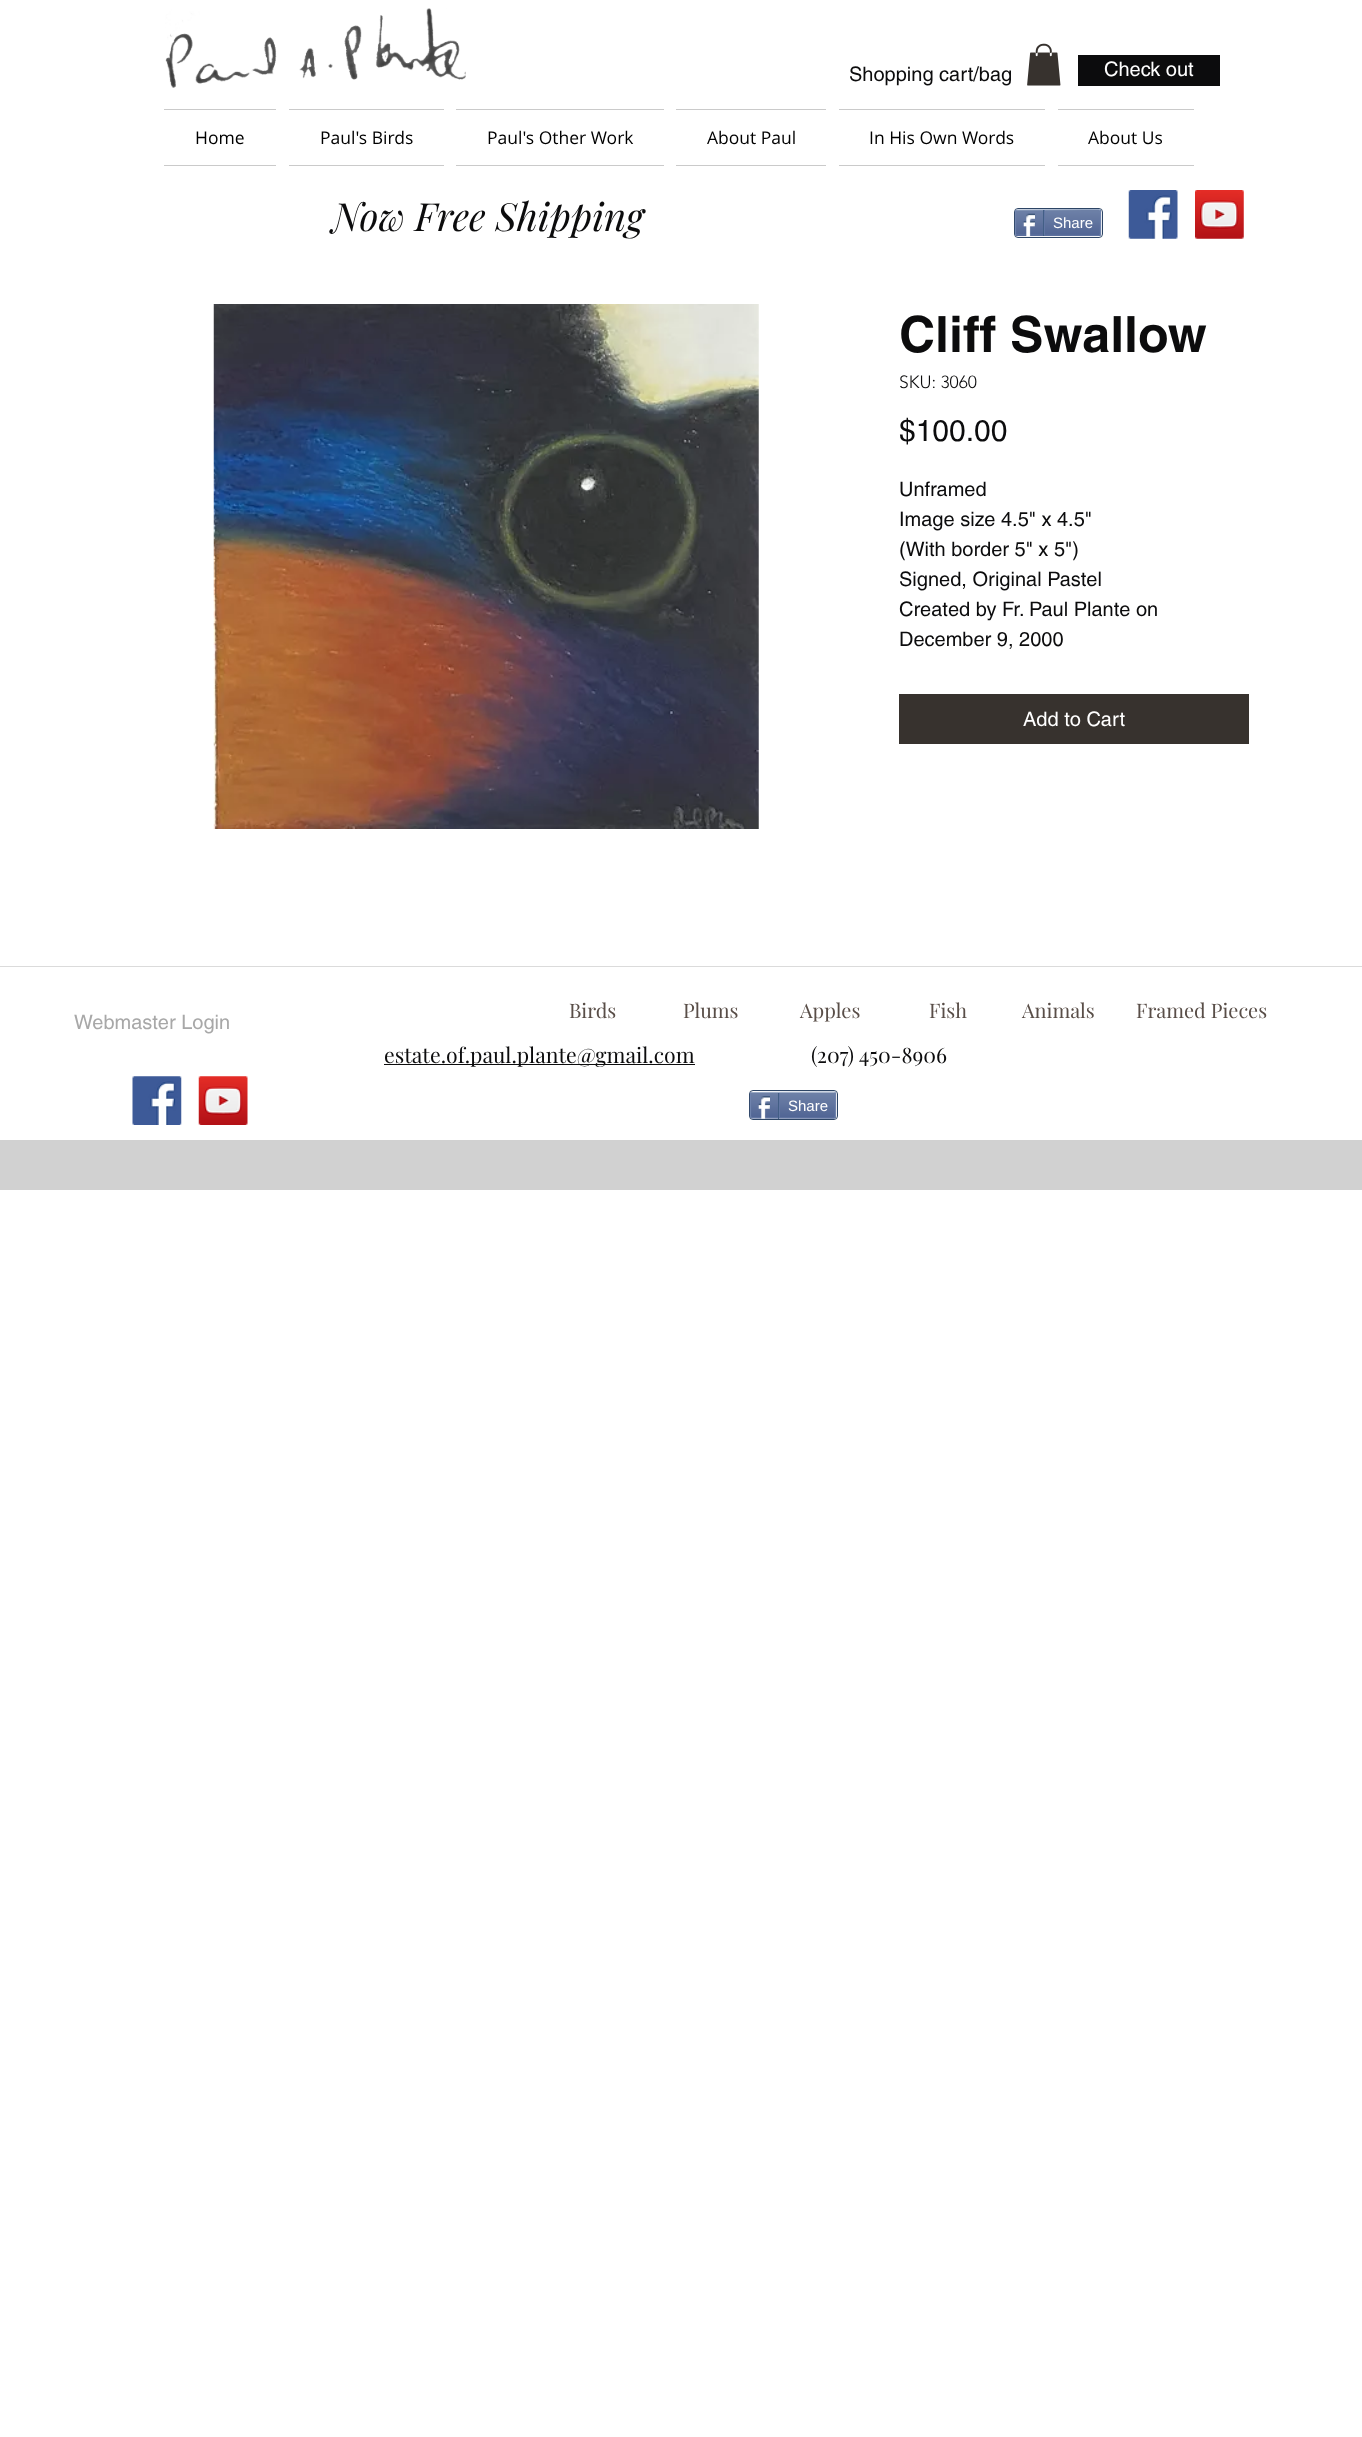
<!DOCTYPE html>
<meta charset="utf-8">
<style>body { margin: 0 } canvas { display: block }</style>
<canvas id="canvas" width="1362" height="2437"></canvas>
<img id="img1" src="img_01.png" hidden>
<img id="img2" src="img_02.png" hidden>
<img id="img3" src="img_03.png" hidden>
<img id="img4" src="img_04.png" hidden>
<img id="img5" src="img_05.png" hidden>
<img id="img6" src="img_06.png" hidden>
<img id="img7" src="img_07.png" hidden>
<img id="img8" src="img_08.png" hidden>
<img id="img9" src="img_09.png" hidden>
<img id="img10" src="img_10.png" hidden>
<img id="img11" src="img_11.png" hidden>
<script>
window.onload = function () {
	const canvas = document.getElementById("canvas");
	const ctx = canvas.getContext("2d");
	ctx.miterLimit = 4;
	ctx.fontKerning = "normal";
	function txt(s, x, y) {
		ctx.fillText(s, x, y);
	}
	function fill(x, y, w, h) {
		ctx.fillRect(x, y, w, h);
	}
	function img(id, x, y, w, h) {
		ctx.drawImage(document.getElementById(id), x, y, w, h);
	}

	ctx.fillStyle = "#FFFFFF";
	fill(0, 0, 1362, 2437);
	img("img1", 165, 8, 301, 80);
	img("img2", 1027, 43, 34, 43);
	ctx.fillStyle = "#0C0C0D";
	fill(1078, 55, 142, 31);
	ctx.fillStyle = "#CACACA";
	fill(164, 109, 112, 1);
	fill(164, 165, 112, 1);
	fill(289, 109, 155, 1);
	fill(289, 165, 155, 1);
	fill(456, 109, 208, 1);
	fill(456, 165, 208, 1);
	fill(676, 109, 150, 1);
	fill(676, 165, 150, 1);
	fill(839, 109, 206, 1);
	fill(839, 165, 206, 1);
	fill(1058, 109, 136, 1);
	fill(1058, 165, 136, 1);
	ctx.beginPath();
	ctx.roundRect(1014.5, 208.5, 88, 29, 3.5);
	ctx.strokeStyle = "#2D4565";
	ctx.stroke();
	img("img3", 1015, 210, 87, 27);
	ctx.beginPath();
	ctx.moveTo(1016, 210);
	ctx.lineTo(1085, 209.5);
	ctx.lineTo(1099, 209.5);
	ctx.lineTo(1100, 210);
	ctx.strokeStyle = "#9AABC6";
	ctx.lineWidth = 1.2;
	ctx.stroke();
	ctx.beginPath();
	ctx.moveTo(1100, 210);
	ctx.lineTo(1100.5, 211);
	ctx.lineTo(1100.5, 234);
	ctx.lineTo(1100, 235);
	ctx.strokeStyle = "#6F83AD";
	ctx.stroke();
	ctx.beginPath();
	ctx.moveTo(1100, 235);
	ctx.lineTo(1099, 235.5);
	ctx.lineTo(1016, 235);
	ctx.strokeStyle = "#6176A3";
	ctx.stroke();
	ctx.beginPath();
	ctx.moveTo(1016, 235);
	ctx.lineTo(1015.5, 234);
	ctx.lineTo(1015.5, 211);
	ctx.lineTo(1016, 210);
	ctx.strokeStyle = "#6F83AD";
	ctx.stroke();
	img("img4", 1022, 213, 13, 23);
	ctx.fillStyle = "#425E85";
	fill(1043, 210, 1, 26);
	ctx.fillStyle = "#6176A3";
	fill(1044, 210, 1, 25);
	img("img5", 1128, 190, 50, 49);
	img("img6", 1195, 190, 49, 49);
	img("img7", 213, 304, 546, 525);
	ctx.fillStyle = "#37322E";
	fill(899, 694, 350, 50);
	ctx.fillStyle = "#DBDBDB";
	fill(0, 966, 1362, 1);
	ctx.fillStyle = "#0C0C0D";
	fill(384, 1064, 311, 1);
	img("img8", 132, 1076, 50, 49);
	img("img9", 198, 1076, 50, 49);
	ctx.beginPath();
	ctx.roundRect(749.5, 1090.5, 88, 29, 3.5);
	ctx.strokeStyle = "#2D4565";
	ctx.lineWidth = 1;
	ctx.stroke();
	img("img10", 750, 1092, 87, 27);
	ctx.beginPath();
	ctx.moveTo(751, 1092.5);
	ctx.lineTo(820, 1092);
	ctx.lineTo(834, 1092);
	ctx.lineTo(835, 1092.5);
	ctx.strokeStyle = "#9AABC6";
	ctx.lineWidth = 1.2;
	ctx.stroke();
	ctx.beginPath();
	ctx.moveTo(835, 1092.5);
	ctx.lineTo(835.5, 1094);
	ctx.lineTo(835.5, 1116);
	ctx.lineTo(835, 1117.5);
	ctx.strokeStyle = "#6F83AD";
	ctx.stroke();
	ctx.beginPath();
	ctx.moveTo(835, 1117.5);
	ctx.lineTo(834, 1118);
	ctx.lineTo(751, 1117.5);
	ctx.strokeStyle = "#6176A3";
	ctx.stroke();
	ctx.beginPath();
	ctx.moveTo(751, 1117.5);
	ctx.lineTo(750.5, 1116);
	ctx.lineTo(750.5, 1094);
	ctx.lineTo(751, 1092.5);
	ctx.strokeStyle = "#6F83AD";
	ctx.stroke();
	img("img11", 757, 1096, 13, 23);
	ctx.fillStyle = "#425E85";
	fill(778, 1093, 1, 26);
	ctx.fillStyle = "#6176A3";
	fill(779, 1093, 1, 25);
	ctx.fillStyle = "#D1D1D1";
	fill(0, 1140, 1362, 50);
	ctx.font = "20px helvetica";
	ctx.fillStyle = "#0C0C0D";
	txt("Shopping cart/bag", 849, 81);
	ctx.fillStyle = "#FFFFFF";
	txt("Check out", 1104, 76);
	ctx.font = "17.5px Open Sans";
	ctx.fillStyle = "#000000";
	txt("Home", 195, 144);
	txt("Paul's Birds", 320, 144);
	txt("Paul's Other Work", 487, 144);
	txt("About Paul", 707, 144);
	txt("In His Own Words", 869, 144);
	txt("About Us", 1088, 144);
	ctx.font = "italic 38.75px Playfair Display";
	ctx.fillStyle = "#0C0C0D";
	txt("Now Free Shipping", 332, 231);
	ctx.font = "15px Liberation Sans";
	ctx.fillStyle = "#FFFFFF";
	txt("Share", 1053, 228);
	ctx.font = "bold 50px helvetica";
	ctx.fillStyle = "#0C0C0D";
	txt("Cliff Swallow", 899, 352);
	ctx.font = "300 17.5px 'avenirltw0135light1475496'";
	txt("SKU: 3060", 899, 388);
	ctx.font = "30px helvetica";
	txt("$100.00", 899, 441);
	ctx.font = "20px helvetica";
	txt("Unframed", 899, 496);
	txt("Image size 4.5\" x 4.5\"", 899, 526);
	txt("(With border 5\" x 5\")", 899, 556);
	txt("Signed, Original Pastel", 899, 586);
	txt("Created by Fr. Paul Plante on", 899, 616);
	txt("December 9, 2000", 899, 646);
	ctx.fillStyle = "#FFFFFF";
	txt("Add to Cart", 1023, 726);
	ctx.font = "20px Playfair Display";
	ctx.fillStyle = "#594E48";
	txt("Birds", 569, 1018);
	txt("Plums", 683, 1018);
	txt("Apples", 800, 1018);
	txt("Fish", 929, 1018);
	txt("Animals", 1022, 1018);
	txt("Framed Pieces", 1136, 1018);
	ctx.font = "20px helvetica";
	ctx.fillStyle = "#A8A8A8";
	txt("Webmaster Login", 74, 1029);
	ctx.font = "21.25px Playfair Display";
	ctx.fillStyle = "#0C0C0D";
	txt("estate.of.paul.plante@gmail.com", 384, 1063);
	txt("(207) 450-8906", 811, 1063);
	ctx.font = "15px Liberation Sans";
	ctx.fillStyle = "#FFFFFF";
	txt("Share", 788, 1111);
};
</script>
